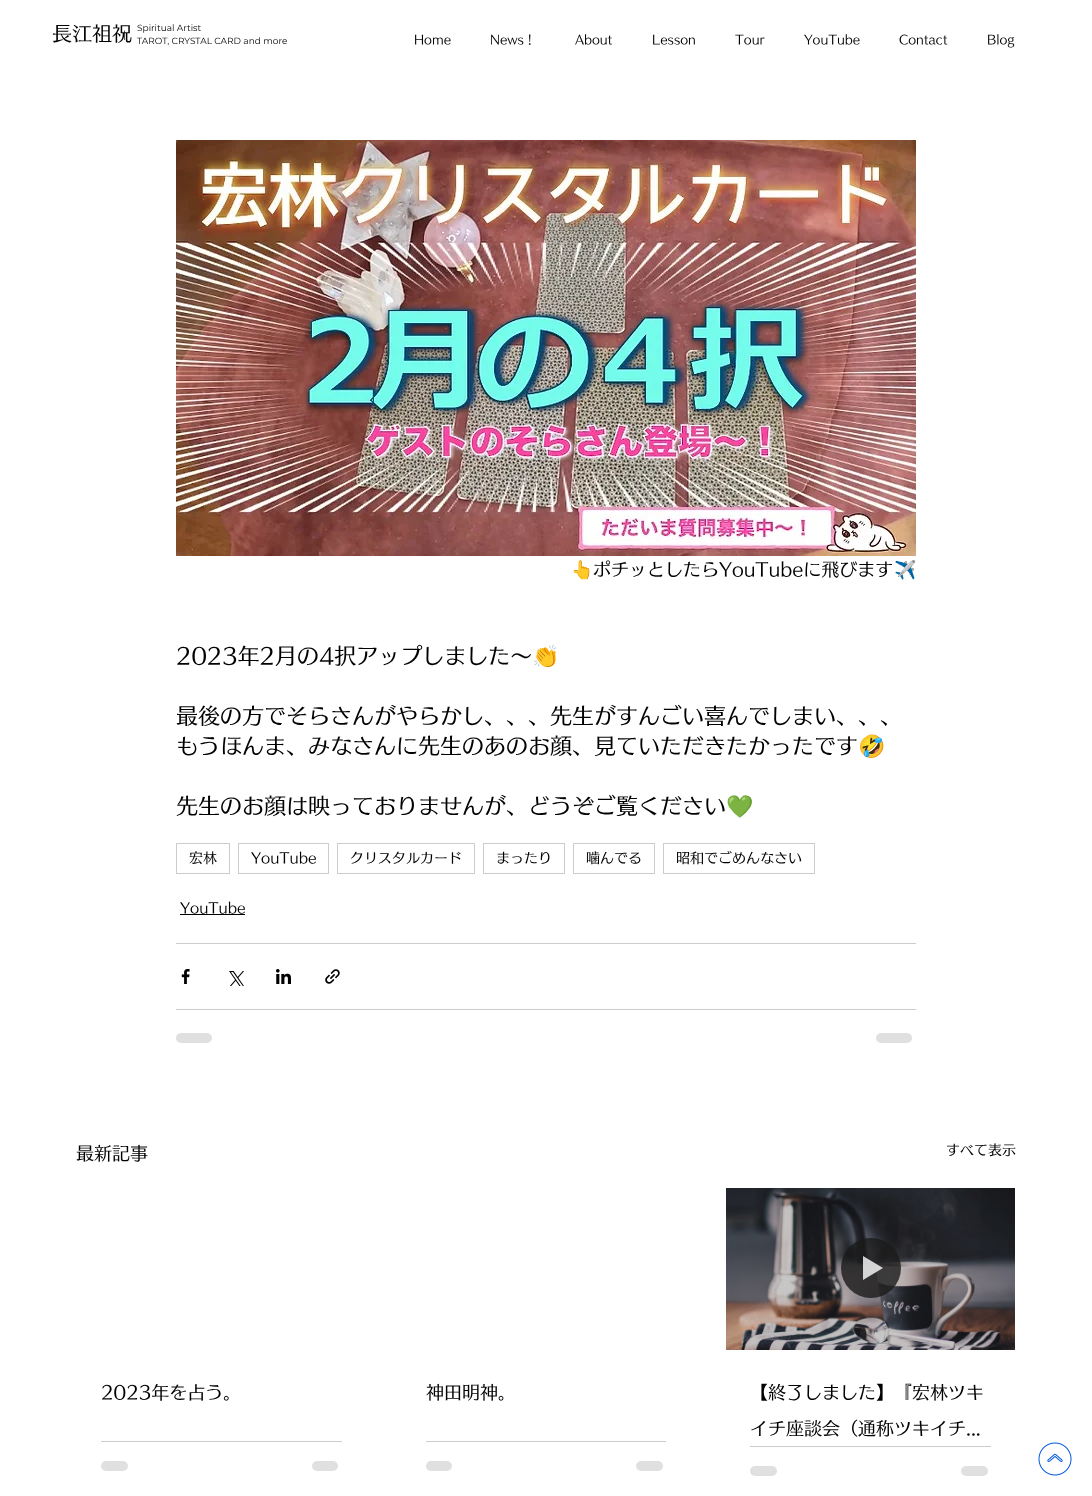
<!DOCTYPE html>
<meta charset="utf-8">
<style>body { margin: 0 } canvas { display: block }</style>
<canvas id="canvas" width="1092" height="1496"></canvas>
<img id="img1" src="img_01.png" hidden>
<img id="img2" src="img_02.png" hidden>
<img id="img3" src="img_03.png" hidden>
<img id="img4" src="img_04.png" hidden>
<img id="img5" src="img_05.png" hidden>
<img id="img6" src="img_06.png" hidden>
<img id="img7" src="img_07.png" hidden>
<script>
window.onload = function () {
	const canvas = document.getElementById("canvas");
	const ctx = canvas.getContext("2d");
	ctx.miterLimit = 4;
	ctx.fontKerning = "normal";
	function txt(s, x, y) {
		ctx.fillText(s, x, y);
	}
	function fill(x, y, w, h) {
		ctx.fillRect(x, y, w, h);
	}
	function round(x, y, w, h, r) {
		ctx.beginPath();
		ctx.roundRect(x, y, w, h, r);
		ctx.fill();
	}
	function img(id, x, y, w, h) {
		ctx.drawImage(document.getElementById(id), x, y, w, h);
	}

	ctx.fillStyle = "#FFFFFF";
	fill(0, 0, 1092, 1496);
	img("img1", 176, 140, 740, 416);
	ctx.strokeStyle = "#CCCCCC";
	ctx.strokeRect(176.5, 843.5, 53, 30);
	ctx.strokeRect(238.5, 843.5, 90, 30);
	ctx.strokeRect(337.5, 843.5, 137, 30);
	ctx.strokeRect(483.5, 843.5, 81, 30);
	ctx.strokeRect(573.5, 843.5, 81, 30);
	ctx.strokeRect(663.5, 843.5, 151, 30);
	ctx.fillStyle = "#000000";
	fill(180, 914, 65, 1);
	ctx.fillStyle = "#CCCCCC";
	fill(176, 943, 740, 1);
	img("img2", 181, 969, 9, 15);
	img("img3", 229, 971, 15, 15);
	img("img4", 276, 969, 15, 15);
	img("img5", 325, 969, 15, 15);
	fill(176, 1009, 740, 1);
	ctx.fillStyle = "#E0E0E0";
	round(176, 1033, 36, 10, 5);
	round(876, 1033, 36, 10, 5);
	ctx.fillStyle = "#CCCCCC";
	fill(101, 1441, 241, 1);
	ctx.fillStyle = "#E0E0E0";
	round(101, 1461, 27, 10, 5);
	round(312, 1461, 26, 10, 5);
	ctx.fillStyle = "#CCCCCC";
	fill(426, 1441, 240, 1);
	ctx.fillStyle = "#E0E0E0";
	round(426, 1461, 26, 10, 5);
	round(636, 1461, 27, 10, 5);
	img("img6", 726, 1188, 289, 162);
	ctx.fillStyle = "rgba(26, 26, 26, 0.8)";
	ctx.beginPath();
	ctx.arc(871, 1268, 30, 0, Math.PI * 2);
	ctx.fill();
	ctx.fillStyle = "rgba(255, 255, 255, 0.8)";
	ctx.beginPath();
	ctx.moveTo(863, 1256);
	ctx.lineTo(863, 1280);
	ctx.lineTo(883, 1268);
	ctx.closePath();
	ctx.fill();
	ctx.fillStyle = "#CCCCCC";
	fill(750, 1446, 241, 1);
	ctx.fillStyle = "#E0E0E0";
	round(750, 1466, 27, 10, 5);
	round(961, 1466, 27, 10, 5);
	img("img7", 1038, 1442, 34, 34);
	ctx.font = "500 20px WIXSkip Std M";
	ctx.fillStyle = "#000000";
	txt("長江祖祝", 52, 41);
	ctx.font = "9px Montserrat";
	txt("Spiritual Artist", 137, 31);
	txt("TAROT, CRYSTAL CARD and more", 137, 44);
	ctx.font = "10px Montserrat";
	txt("|", 123, 38);
	ctx.font = "500 12px WIXSkip Std M";
	txt("Home", 414, 44);
	txt("News！", 490, 44);
	txt("About", 575, 44);
	txt("Lesson", 652, 44);
	txt("Tour", 735, 44);
	txt("YouTube", 804, 44);
	txt("Contact", 899, 44);
	txt("Blog", 987, 44);
	ctx.font = "18px Noto Color Emoji";
	txt("👆", 571, 576);
	ctx.font = "500 18px WIXSkip Std M";
	txt("ポチッとしたらYouTubeに飛びます", 593, 576);
	ctx.font = "18px Noto Color Emoji";
	txt("✈️", 894, 576);
	ctx.font = "500 22px WIXSkip Std M";
	txt("2023年2月の4択アップしました〜", 176, 664);
	ctx.font = "22px 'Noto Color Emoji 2'";
	txt("👏", 532, 664);
	ctx.font = "500 22px WIXSkip Std M";
	txt("最後の方でそらさんがやらかし、、、先生がすんごい喜んでしまい、、、", 176, 724);
	txt("もうほんま、みなさんに先生のあのお顔、見ていただきたかったです", 176, 754);
	ctx.font = "22px 'Noto Color Emoji 2'";
	txt("🤣", 858, 754);
	ctx.font = "500 22px WIXSkip Std M";
	txt("先生のお顔は映っておりませんが、どうぞご覧ください", 176, 814);
	ctx.font = "22px 'Noto Color Emoji 2'";
	txt("💚", 726, 814);
	ctx.font = "500 14px WIXSkip Std M";
	txt("宏林", 189, 863);
	txt("YouTube", 251, 863);
	txt("クリスタルカード", 350, 863);
	txt("まったり", 496, 863);
	txt("噛んでる", 586, 863);
	txt("昭和でごめんなさい", 676, 863);
	txt("YouTube", 180, 913);
	ctx.font = "500 18px WIXSkip Std M";
	txt("最新記事", 76, 1160);
	ctx.font = "500 14px WIXSkip Std M";
	txt("すべて表示", 946, 1155);
	ctx.font = "500 18px WIXSkip Std M";
	txt("2023年を占う。", 101, 1399);
	txt("神田明神。", 426, 1399);
	txt("【終了しました】『宏林ツキ", 750, 1399);
	txt("イチ座談会（通称ツキイチ...", 750, 1435);
};
</script>
